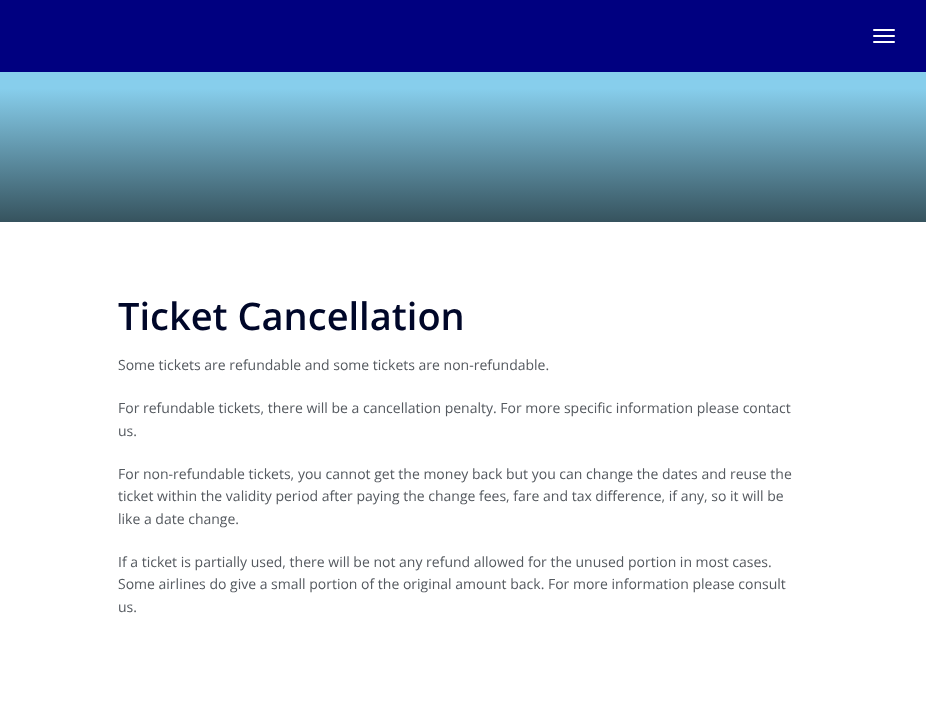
<!DOCTYPE html>
<meta charset="utf-8">
<style>body { margin: 0 } canvas { display: block }</style>
<canvas id="canvas" width="926" height="722"></canvas>
<script>
window.onload = function () {
	const canvas = document.getElementById("canvas");
	const ctx = canvas.getContext("2d");
	ctx.miterLimit = 4;
	ctx.fontKerning = "normal";
	function txt(s, x, y) {
		ctx.fillText(s, x, y);
	}
	function fill(x, y, w, h) {
		ctx.fillRect(x, y, w, h);
	}
	function round(x, y, w, h, r) {
		ctx.beginPath();
		ctx.roundRect(x, y, w, h, r);
		ctx.fill();
	}
	let gradient;

	ctx.fillStyle = "#FFFFFF";
	fill(0, 0, 926, 722);
	ctx.fillStyle = "#000080";
	fill(0, 0, 926, 72);
	ctx.fillStyle = "#FFFFFF";
	round(873, 29, 22, 2, 1);
	round(873, 35, 22, 2, 1);
	round(873, 41, 22, 2, 1);
	gradient = ctx.createLinearGradient(463, -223, 463, 222);
	gradient.addColorStop(0, "#446776");
	gradient.addColorStop(0.25, "#87CEEC");
	gradient.addColorStop(0.7, "#87CEEC");
	gradient.addColorStop(1, "#36535E");
	ctx.fillStyle = gradient;
	fill(0, 72, 926, 150);
	ctx.font = "600 38px Open Sans";
	ctx.fillStyle = "#000729";
	txt("Ticket Cancellation", 118, 330);
	ctx.font = "14px Open Sans";
	ctx.fillStyle = "#54595F";
	txt("Some tickets are refundable and some tickets are non-refundable.", 118, 370);
	txt("For refundable tickets, there will be a cancellation penalty. For more specific information please contact", 118, 413);
	txt("us.", 118, 436);
	txt("For non-refundable tickets, you cannot get the money back but you can change the dates and reuse the", 118, 479);
	txt("ticket within the validity period after paying the change fees, fare and tax difference, if any, so it will be", 118, 501);
	txt("like a date change.", 118, 524);
	txt("If a ticket is partially used, there will be not any refund allowed for the unused portion in most cases.", 118, 567);
	txt("Some airlines do give a small portion of the original amount back. For more information please consult", 118, 589);
	txt("us.", 118, 612);
};
</script>
